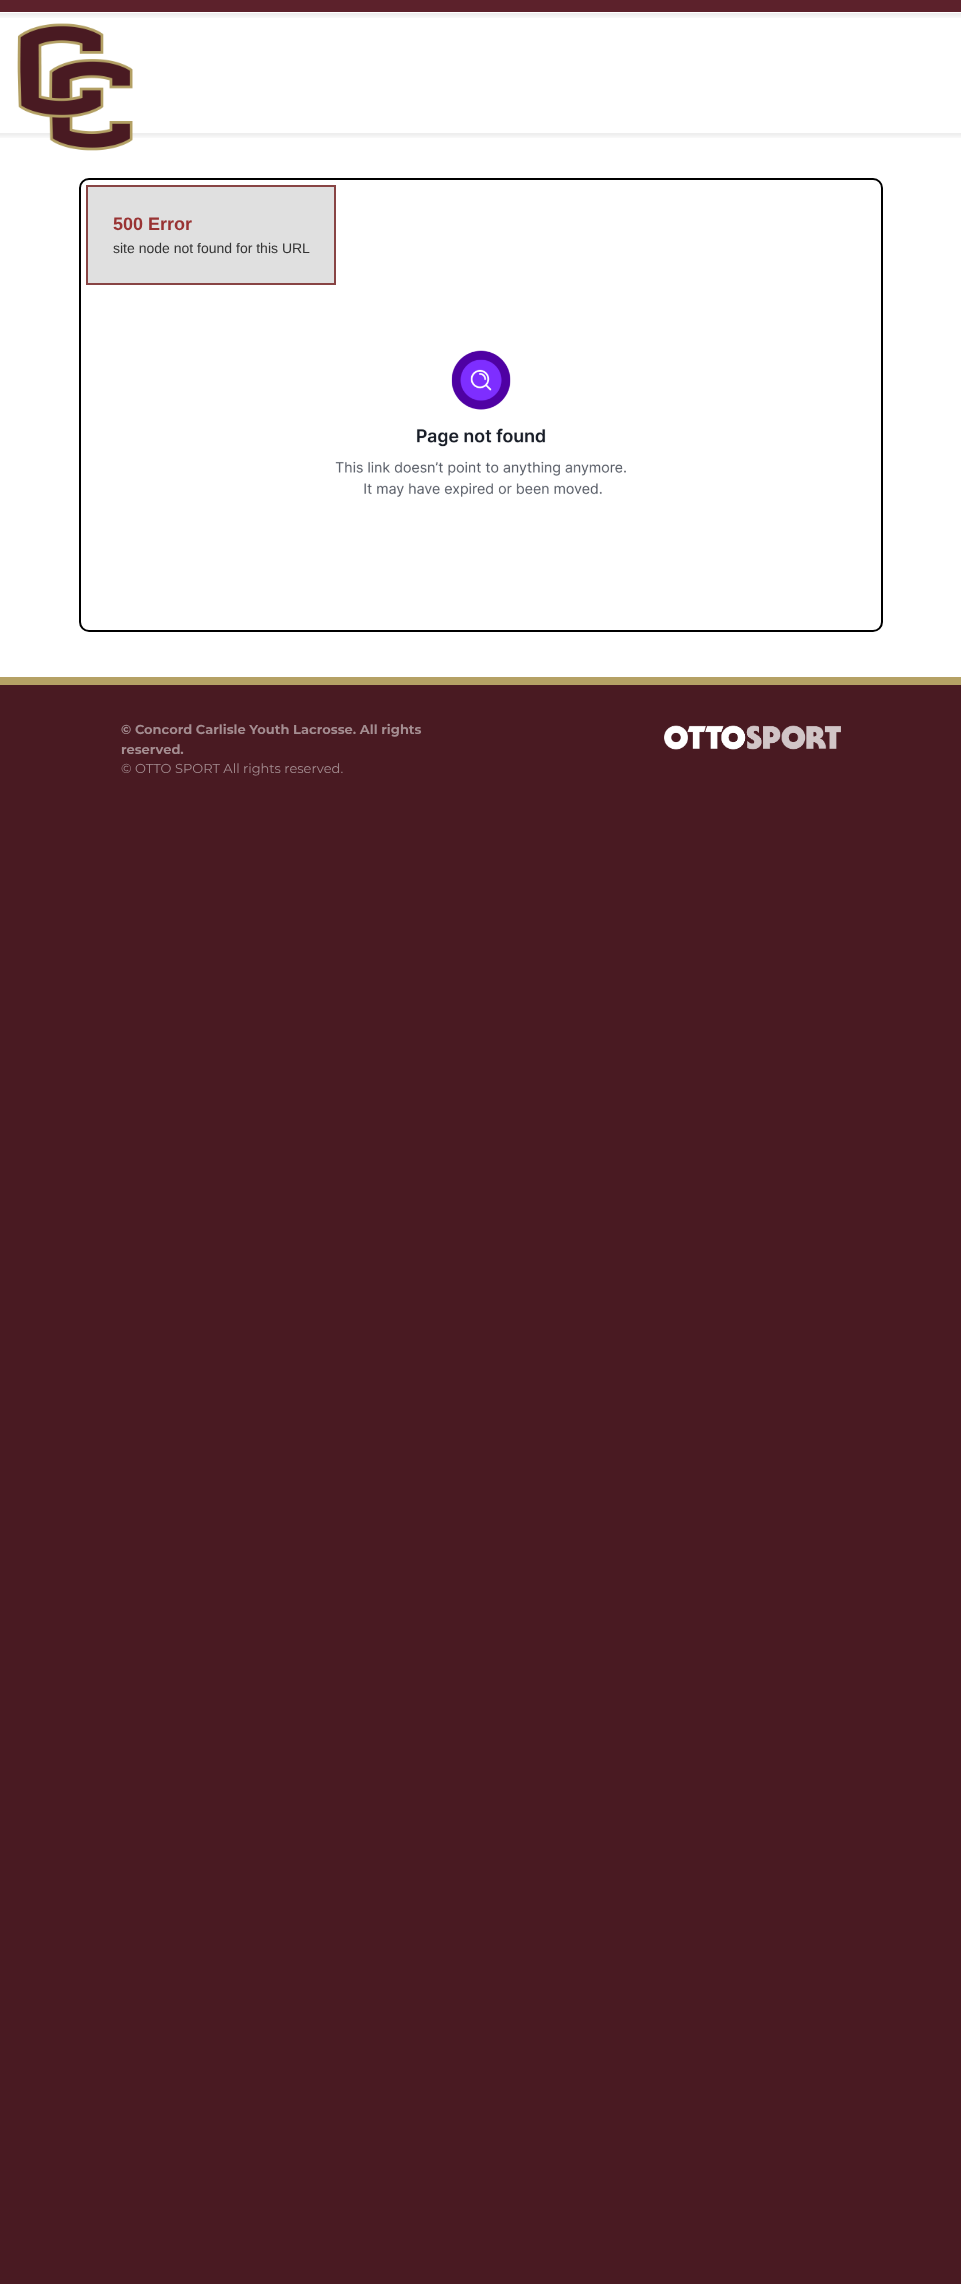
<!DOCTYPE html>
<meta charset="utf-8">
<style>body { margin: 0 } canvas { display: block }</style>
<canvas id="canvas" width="961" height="2284"></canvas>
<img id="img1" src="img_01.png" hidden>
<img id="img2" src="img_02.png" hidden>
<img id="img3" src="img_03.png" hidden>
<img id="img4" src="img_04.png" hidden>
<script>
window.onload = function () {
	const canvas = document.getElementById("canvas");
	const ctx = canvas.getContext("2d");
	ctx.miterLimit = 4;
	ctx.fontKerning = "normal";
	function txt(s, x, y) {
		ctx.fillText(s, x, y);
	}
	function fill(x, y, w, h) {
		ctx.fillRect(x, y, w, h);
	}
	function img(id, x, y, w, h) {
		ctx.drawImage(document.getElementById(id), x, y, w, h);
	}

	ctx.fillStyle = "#491A22";
	fill(0, 0, 961, 2284);
	ctx.fillStyle = "#5C212B";
	fill(0, 0, 961, 12);
	ctx.fillStyle = "#FFFFFF";
	fill(0, 12, 961, 665);
	img("img1", 0, 13, 961, 5);
	img("img1", 0, 133, 961, 5);
	img("img2", 17, 23, 116, 128);
	img("img3", 335, 350, 291, 147);
	ctx.beginPath();
	ctx.roundRect(80, 179, 802, 452, 9);
	ctx.strokeStyle = "#000000";
	ctx.lineWidth = 2;
	ctx.stroke();
	ctx.fillStyle = "#E0E0E0";
	ctx.beginPath();
	ctx.rect(87, 186, 248, 98);
	ctx.fill();
	ctx.strokeStyle = "#884444";
	ctx.stroke();
	ctx.fillStyle = "#B5A165";
	fill(0, 677, 961, 8);
	img("img4", 664, 725, 177, 25);
	ctx.font = "bold 18px Liberation Sans";
	ctx.fillStyle = "#993333";
	txt("500 Error", 113, 230);
	ctx.font = "14px Liberation Sans";
	ctx.fillStyle = "#333333";
	txt("site node not found for this URL", 113, 253);
	ctx.font = "bold 13px Montserrat";
	ctx.fillStyle = "#A48D91";
	txt("© Concord Carlisle Youth Lacrosse. All rights", 121, 734);
	txt("reserved.", 121, 754);
	ctx.font = "13px Montserrat";
	txt("© OTTO SPORT All rights reserved.", 121, 773);
};
</script>
